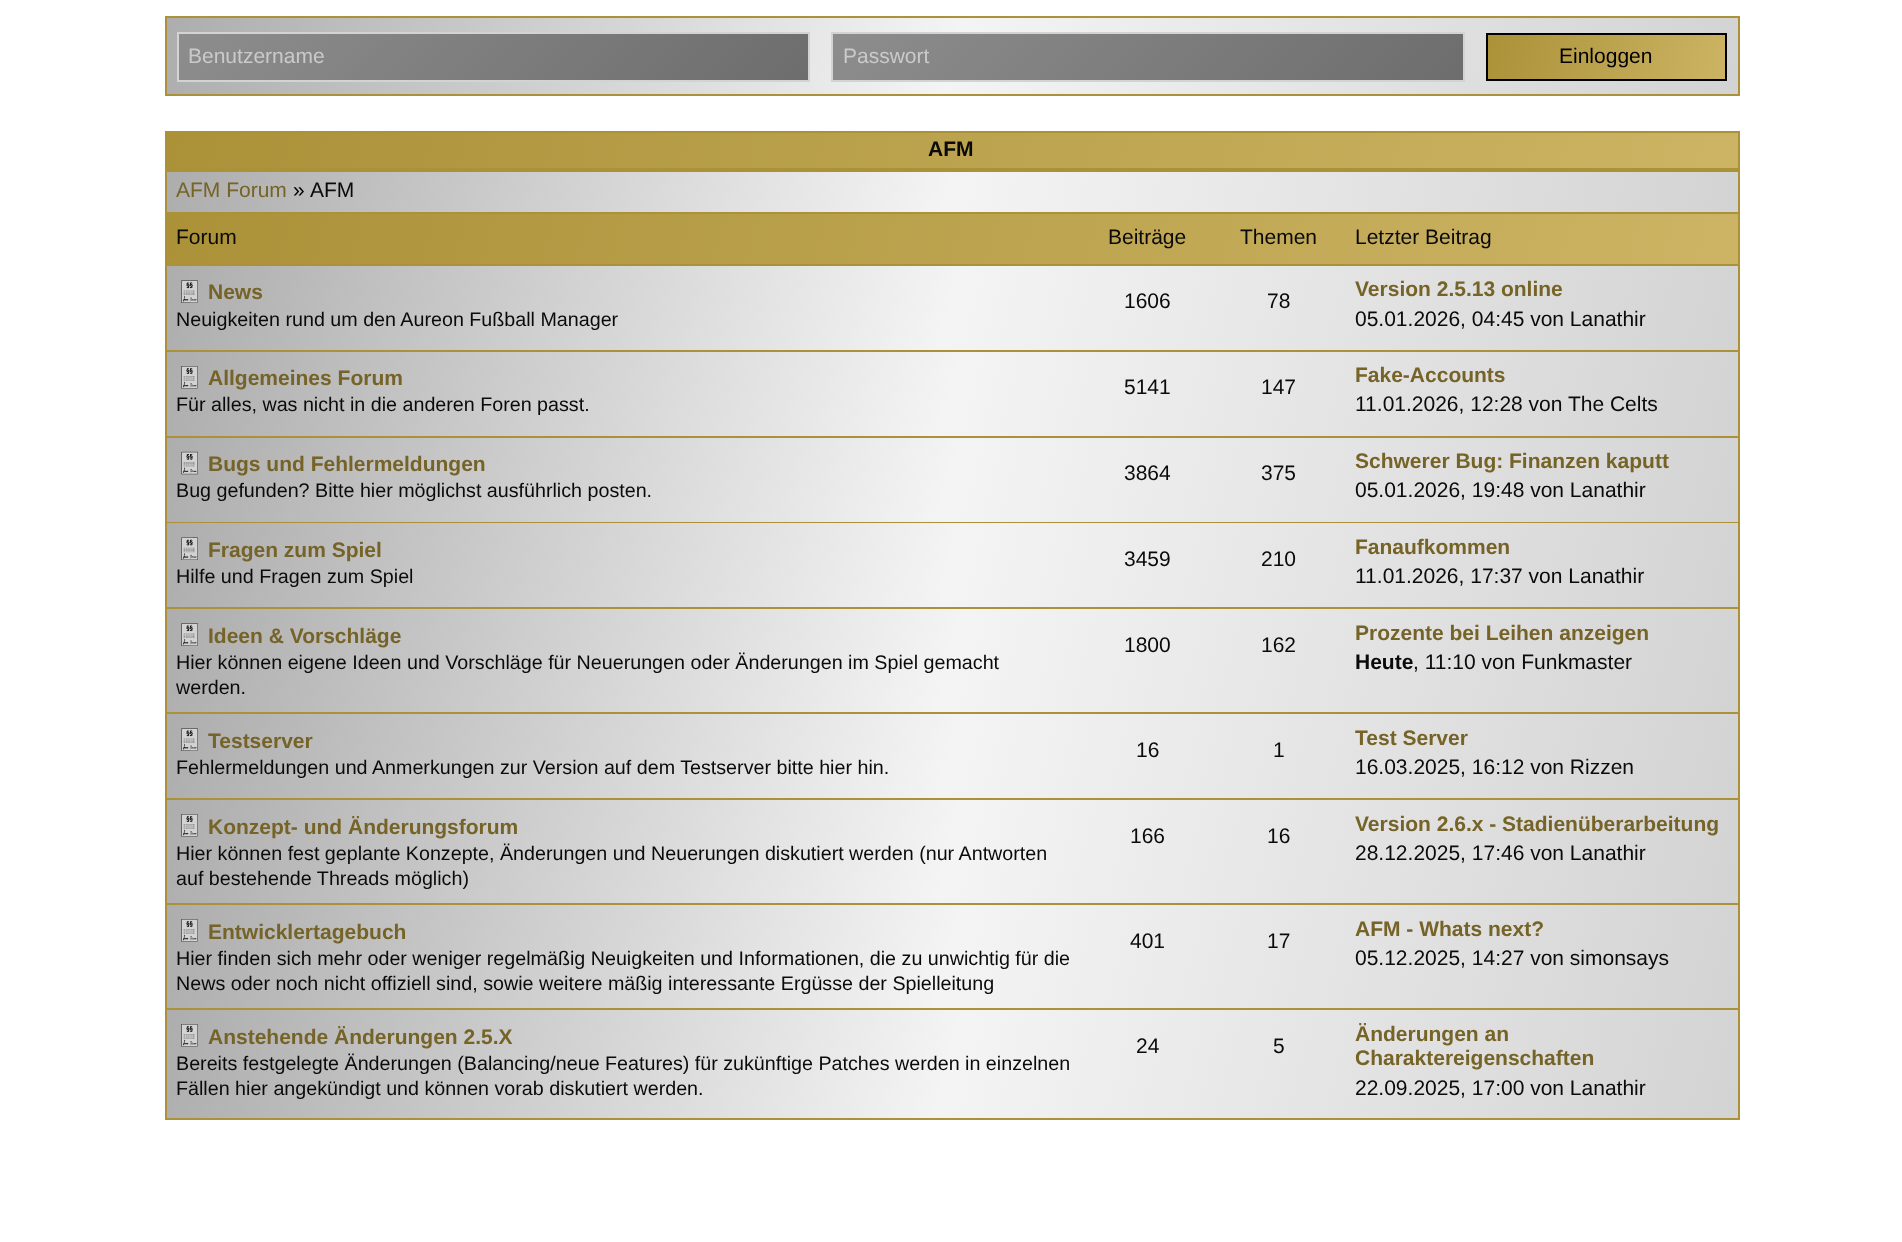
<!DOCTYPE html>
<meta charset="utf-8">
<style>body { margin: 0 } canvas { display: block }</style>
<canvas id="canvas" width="1902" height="1242"></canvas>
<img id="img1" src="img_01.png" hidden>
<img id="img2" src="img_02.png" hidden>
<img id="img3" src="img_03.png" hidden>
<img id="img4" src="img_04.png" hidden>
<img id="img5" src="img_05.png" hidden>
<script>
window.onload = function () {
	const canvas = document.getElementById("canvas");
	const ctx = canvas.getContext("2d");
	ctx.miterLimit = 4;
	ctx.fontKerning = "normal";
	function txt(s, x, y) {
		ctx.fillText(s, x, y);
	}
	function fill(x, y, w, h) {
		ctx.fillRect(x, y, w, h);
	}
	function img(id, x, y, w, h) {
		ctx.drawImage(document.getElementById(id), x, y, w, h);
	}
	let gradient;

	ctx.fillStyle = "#FFFFFF";
	fill(0, 0, 1902, 1242);
	gradient = ctx.createLinearGradient(209, -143, 1695, 255);
	gradient.addColorStop(0, "#ADADAD");
	gradient.addColorStop(0.5, "#F4F4F4");
	gradient.addColorStop(1, "#D3D3D3");
	ctx.fillStyle = gradient;
	fill(167, 18, 1571, 76);
	ctx.strokeStyle = "#AB9138";
	ctx.lineWidth = 2;
	ctx.strokeRect(166, 17, 1573, 78);
	gradient = ctx.createLinearGradient(324, -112, 663, 226);
	gradient.addColorStop(0, "#8D8D8D");
	gradient.addColorStop(1, "#6D6D6D");
	ctx.fillStyle = gradient;
	fill(179, 34, 629, 46);
	ctx.strokeStyle = "#D3D3D3";
	ctx.strokeRect(178, 33, 631, 48);
	gradient = ctx.createLinearGradient(979, -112, 1317, 226);
	gradient.addColorStop(0, "#8D8D8D");
	gradient.addColorStop(1, "#6D6D6D");
	ctx.fillStyle = gradient;
	fill(833, 34, 630, 46);
	ctx.strokeRect(832, 33, 632, 48);
	gradient = ctx.createLinearGradient(1490, 26, 1723, 88);
	gradient.addColorStop(0, "#AB9138");
	gradient.addColorStop(1, "#CCB464");
	ctx.fillStyle = gradient;
	fill(1488, 35, 237, 44);
	ctx.strokeStyle = "#000000";
	ctx.strokeRect(1487, 34, 239, 46);
	gradient = ctx.createLinearGradient(215, -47, 1689, 348);
	gradient.addColorStop(0, "#AB9138");
	gradient.addColorStop(1, "#CCB464");
	ctx.fillStyle = gradient;
	fill(167, 133, 1571, 35);
	ctx.strokeStyle = "#AB9138";
	ctx.strokeRect(166, 132, 1573, 37);
	gradient = ctx.createLinearGradient(214, -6.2, 1690, 389);
	gradient.addColorStop(0, "#ADADAD");
	gradient.addColorStop(0.5, "#F4F4F4");
	gradient.addColorStop(1, "#D3D3D3");
	ctx.fillStyle = gradient;
	fill(167, 172, 1571, 40);
	ctx.strokeRect(166, 171, 1573, 42);
	gradient = ctx.createLinearGradient(213, 41, 1691, 437);
	gradient.addColorStop(0, "#AB9138");
	gradient.addColorStop(1, "#CCB464");
	ctx.fillStyle = gradient;
	fill(167, 214, 1571, 50);
	gradient = ctx.createLinearGradient(1784, 41, 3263, 437);
	gradient.addColorStop(0, "#AB9138");
	gradient.addColorStop(1, "#CCB464");
	ctx.fillStyle = gradient;
	fill(1738, 214, 2, 50);
	ctx.fillStyle = "#AB9138";
	fill(165, 264, 1575, 2);
	fill(165, 214, 2, 52);
	gradient = ctx.createLinearGradient(208, 109, 1696, 507);
	gradient.addColorStop(0, "#ADADAD");
	gradient.addColorStop(0.5, "#F4F4F4");
	gradient.addColorStop(1, "#D3D3D3");
	ctx.fillStyle = gradient;
	fill(167, 266, 1571, 84);
	ctx.fillStyle = "#AB9138";
	fill(1738, 266, 2, 854);
	fill(165, 350, 1575, 2);
	fill(165, 266, 2, 86);
	ctx.fillStyle = "#D3D3D3";
	fill(182, 281, 16, 22);
	img("img1", 181, 280, 17, 23);
	gradient = ctx.createLinearGradient(208, 194, 1696, 593);
	gradient.addColorStop(0, "#ADADAD");
	gradient.addColorStop(0.5, "#F4F4F4");
	gradient.addColorStop(1, "#D3D3D3");
	ctx.fillStyle = gradient;
	fill(167, 352, 1571, 84);
	ctx.fillStyle = "#AB9138";
	fill(165, 436, 1575, 2);
	fill(165, 352, 2, 86);
	ctx.fillStyle = "#D3D3D3";
	fill(182, 366, 16, 23);
	img("img2", 181, 366, 17, 23);
	gradient = ctx.createLinearGradient(208, 280, 1696, 679);
	gradient.addColorStop(0, "#ADADAD");
	gradient.addColorStop(0.5, "#F4F4F4");
	gradient.addColorStop(1, "#D3D3D3");
	ctx.fillStyle = gradient;
	fill(167, 438, 1571, 84);
	ctx.fillStyle = "#AB9138";
	fill(165, 522, 1575, 1);
	fill(165, 438, 2, 85);
	ctx.fillStyle = "#D3D3D3";
	fill(182, 452, 16, 22);
	img("img3", 181, 451, 17, 24);
	gradient = ctx.createLinearGradient(208, 366, 1696, 765);
	gradient.addColorStop(0, "#ADADAD");
	gradient.addColorStop(0.5, "#F4F4F4");
	gradient.addColorStop(1, "#D3D3D3");
	ctx.fillStyle = gradient;
	fill(167, 523, 1571, 84);
	ctx.fillStyle = "#AB9138";
	fill(165, 607, 1575, 2);
	fill(165, 523, 2, 86);
	ctx.fillStyle = "#D3D3D3";
	fill(182, 538, 16, 22);
	img("img4", 181, 537, 17, 23);
	gradient = ctx.createLinearGradient(206, 461, 1698, 861);
	gradient.addColorStop(0, "#ADADAD");
	gradient.addColorStop(0.5, "#F4F4F4");
	gradient.addColorStop(1, "#D3D3D3");
	ctx.fillStyle = gradient;
	fill(167, 609, 1571, 103);
	ctx.fillStyle = "#AB9138";
	fill(165, 712, 1575, 2);
	fill(165, 609, 2, 105);
	ctx.fillStyle = "#D3D3D3";
	fill(182, 624, 16, 22);
	img("img5", 181, 623, 17, 23);
	gradient = ctx.createLinearGradient(208, 557, 1696, 955);
	gradient.addColorStop(0, "#ADADAD");
	gradient.addColorStop(0.5, "#F4F4F4");
	gradient.addColorStop(1, "#D3D3D3");
	ctx.fillStyle = gradient;
	fill(167, 714, 1571, 84);
	ctx.fillStyle = "#AB9138";
	fill(165, 798, 1575, 2);
	fill(165, 714, 2, 86);
	ctx.fillStyle = "#D3D3D3";
	fill(182, 729, 16, 22);
	img("img1", 181, 728, 17, 23);
	gradient = ctx.createLinearGradient(206, 651, 1698, 1051);
	gradient.addColorStop(0, "#ADADAD");
	gradient.addColorStop(0.5, "#F4F4F4");
	gradient.addColorStop(1, "#D3D3D3");
	ctx.fillStyle = gradient;
	fill(167, 800, 1571, 103);
	ctx.fillStyle = "#AB9138";
	fill(165, 903, 1575, 2);
	fill(165, 800, 2, 105);
	ctx.fillStyle = "#D3D3D3";
	fill(182, 814, 16, 23);
	img("img2", 181, 814, 17, 23);
	gradient = ctx.createLinearGradient(206, 756, 1698, 1156);
	gradient.addColorStop(0, "#ADADAD");
	gradient.addColorStop(0.5, "#F4F4F4");
	gradient.addColorStop(1, "#D3D3D3");
	ctx.fillStyle = gradient;
	fill(167, 905, 1571, 103);
	ctx.fillStyle = "#AB9138";
	fill(165, 1008, 1575, 2);
	fill(165, 905, 2, 105);
	ctx.fillStyle = "#D3D3D3";
	fill(182, 919, 16, 23);
	img("img2", 181, 919, 17, 23);
	gradient = ctx.createLinearGradient(205, 864, 1699, 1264);
	gradient.addColorStop(0, "#ADADAD");
	gradient.addColorStop(0.5, "#F4F4F4");
	gradient.addColorStop(1, "#D3D3D3");
	ctx.fillStyle = gradient;
	fill(167, 1010, 1571, 108);
	ctx.fillStyle = "#AB9138";
	fill(165, 1118, 1575, 2);
	fill(165, 1010, 2, 110);
	ctx.fillStyle = "#D3D3D3";
	fill(182, 1024, 16, 23);
	img("img2", 181, 1024, 17, 23);
	ctx.font = "21px Liberation Sans";
	ctx.fillStyle = "#CACACA";
	txt("Benutzername", 188, 63);
	txt("Passwort", 843, 63);
	ctx.fillStyle = "#000000";
	txt("Einloggen", 1559, 63);
	ctx.font = "bold 21px Liberation Sans";
	ctx.fillStyle = "#0A0A0A";
	txt("AFM", 928, 156);
	ctx.font = "21px Liberation Sans";
	ctx.fillStyle = "#756327";
	txt("AFM Forum", 176, 197);
	ctx.fillStyle = "#000000";
	txt("»", 293, 197);
	ctx.fillStyle = "#0A0A0A";
	txt("AFM", 310, 197);
	txt("Forum", 176, 244);
	txt("Beiträge", 1108, 244);
	txt("Themen", 1240, 244);
	txt("Letzter Beitrag", 1355, 244);
	ctx.font = "bold 21px Liberation Sans";
	ctx.fillStyle = "#756327";
	txt("News", 208, 299);
	ctx.font = "19.7px Liberation Sans";
	ctx.fillStyle = "#0A0A0A";
	txt("Neuigkeiten rund um den Aureon Fußball Manager", 176, 326);
	ctx.font = "21px Liberation Sans";
	txt("1606", 1124, 308);
	txt("78", 1267, 308);
	ctx.font = "bold 21px Liberation Sans";
	ctx.fillStyle = "#756327";
	txt("Version 2.5.13 online", 1355, 296);
	ctx.font = "21px Liberation Sans";
	ctx.fillStyle = "#0A0A0A";
	txt("05.01.2026, 04:45 von Lanathir", 1355, 326);
	ctx.font = "bold 21px Liberation Sans";
	ctx.fillStyle = "#756327";
	txt("Allgemeines Forum", 208, 385);
	ctx.font = "19.7px Liberation Sans";
	ctx.fillStyle = "#0A0A0A";
	txt("Für alles, was nicht in die anderen Foren passt.", 176, 411);
	ctx.font = "21px Liberation Sans";
	txt("5141", 1124, 394);
	txt("147", 1261, 394);
	ctx.font = "bold 21px Liberation Sans";
	ctx.fillStyle = "#756327";
	txt("Fake-Accounts", 1355, 382);
	ctx.font = "21px Liberation Sans";
	ctx.fillStyle = "#0A0A0A";
	txt("11.01.2026, 12:28 von The Celts", 1355, 411);
	ctx.font = "bold 21px Liberation Sans";
	ctx.fillStyle = "#756327";
	txt("Bugs und Fehlermeldungen", 208, 471);
	ctx.font = "19.7px Liberation Sans";
	ctx.fillStyle = "#0A0A0A";
	txt("Bug gefunden? Bitte hier möglichst ausführlich posten.", 176, 497);
	ctx.font = "21px Liberation Sans";
	txt("3864", 1124, 480);
	txt("375", 1261, 480);
	ctx.font = "bold 21px Liberation Sans";
	ctx.fillStyle = "#756327";
	txt("Schwerer Bug: Finanzen kaputt", 1355, 468);
	ctx.font = "21px Liberation Sans";
	ctx.fillStyle = "#0A0A0A";
	txt("05.01.2026, 19:48 von Lanathir", 1355, 497);
	ctx.font = "bold 21px Liberation Sans";
	ctx.fillStyle = "#756327";
	txt("Fragen zum Spiel", 208, 557);
	ctx.font = "19.7px Liberation Sans";
	ctx.fillStyle = "#0A0A0A";
	txt("Hilfe und Fragen zum Spiel", 176, 583);
	ctx.font = "21px Liberation Sans";
	txt("3459", 1124, 566);
	txt("210", 1261, 566);
	ctx.font = "bold 21px Liberation Sans";
	ctx.fillStyle = "#756327";
	txt("Fanaufkommen", 1355, 554);
	ctx.font = "21px Liberation Sans";
	ctx.fillStyle = "#0A0A0A";
	txt("11.01.2026, 17:37 von Lanathir", 1355, 583);
	ctx.font = "bold 21px Liberation Sans";
	ctx.fillStyle = "#756327";
	txt("Ideen & Vorschläge", 208, 643);
	ctx.font = "19.7px Liberation Sans";
	ctx.fillStyle = "#0A0A0A";
	txt("Hier können eigene Ideen und Vorschläge für Neuerungen oder Änderungen im Spiel gemacht", 176, 669);
	txt("werden.", 176, 694);
	ctx.font = "21px Liberation Sans";
	txt("1800", 1124, 652);
	txt("162", 1261, 652);
	ctx.font = "bold 21px Liberation Sans";
	ctx.fillStyle = "#756327";
	txt("Prozente bei Leihen anzeigen", 1355, 640);
	ctx.fillStyle = "#0A0A0A";
	txt("Heute", 1355, 669);
	ctx.font = "21px Liberation Sans";
	txt(", 11:10 von Funkmaster", 1413, 669);
	ctx.font = "bold 21px Liberation Sans";
	ctx.fillStyle = "#756327";
	txt("Testserver", 208, 748);
	ctx.font = "19.7px Liberation Sans";
	ctx.fillStyle = "#0A0A0A";
	txt("Fehlermeldungen und Anmerkungen zur Version auf dem Testserver bitte hier hin.", 176, 774);
	ctx.font = "21px Liberation Sans";
	txt("16", 1136, 757);
	txt("1", 1273, 757);
	ctx.font = "bold 21px Liberation Sans";
	ctx.fillStyle = "#756327";
	txt("Test Server", 1355, 745);
	ctx.font = "21px Liberation Sans";
	ctx.fillStyle = "#0A0A0A";
	txt("16.03.2025, 16:12 von Rizzen", 1355, 774);
	ctx.font = "bold 21px Liberation Sans";
	ctx.fillStyle = "#756327";
	txt("Konzept- und Änderungsforum", 208, 834);
	ctx.font = "19.7px Liberation Sans";
	ctx.fillStyle = "#0A0A0A";
	txt("Hier können fest geplante Konzepte, Änderungen und Neuerungen diskutiert werden (nur Antworten", 176, 860);
	txt("auf bestehende Threads möglich)", 176, 885);
	ctx.font = "21px Liberation Sans";
	txt("166", 1130, 843);
	txt("16", 1267, 843);
	ctx.font = "bold 21px Liberation Sans";
	ctx.fillStyle = "#756327";
	txt("Version 2.6.x - Stadienüberarbeitung", 1355, 831);
	ctx.font = "21px Liberation Sans";
	ctx.fillStyle = "#0A0A0A";
	txt("28.12.2025, 17:46 von Lanathir", 1355, 860);
	ctx.font = "bold 21px Liberation Sans";
	ctx.fillStyle = "#756327";
	txt("Entwicklertagebuch", 208, 939);
	ctx.font = "19.7px Liberation Sans";
	ctx.fillStyle = "#0A0A0A";
	txt("Hier finden sich mehr oder weniger regelmäßig Neuigkeiten und Informationen, die zu unwichtig für die", 176, 965);
	txt("News oder noch nicht offiziell sind, sowie weitere mäßig interessante Ergüsse der Spielleitung", 176, 990);
	ctx.font = "21px Liberation Sans";
	txt("401", 1130, 948);
	txt("17", 1267, 948);
	ctx.font = "bold 21px Liberation Sans";
	ctx.fillStyle = "#756327";
	txt("AFM - Whats next?", 1355, 936);
	ctx.font = "21px Liberation Sans";
	ctx.fillStyle = "#0A0A0A";
	txt("05.12.2025, 14:27 von simonsays", 1355, 965);
	ctx.font = "bold 21px Liberation Sans";
	ctx.fillStyle = "#756327";
	txt("Anstehende Änderungen 2.5.X", 208, 1044);
	ctx.font = "19.7px Liberation Sans";
	ctx.fillStyle = "#0A0A0A";
	txt("Bereits festgelegte Änderungen (Balancing/neue Features) für zukünftige Patches werden in einzelnen", 176, 1070);
	txt("Fällen hier angekündigt und können vorab diskutiert werden.", 176, 1095);
	ctx.font = "21px Liberation Sans";
	txt("24", 1136, 1053);
	txt("5", 1273, 1053);
	ctx.font = "bold 21px Liberation Sans";
	ctx.fillStyle = "#756327";
	txt("Änderungen an", 1355, 1041);
	txt("Charaktereigenschaften", 1355, 1065);
	ctx.font = "21px Liberation Sans";
	ctx.fillStyle = "#0A0A0A";
	txt("22.09.2025, 17:00 von Lanathir", 1355, 1095);
};
</script>
